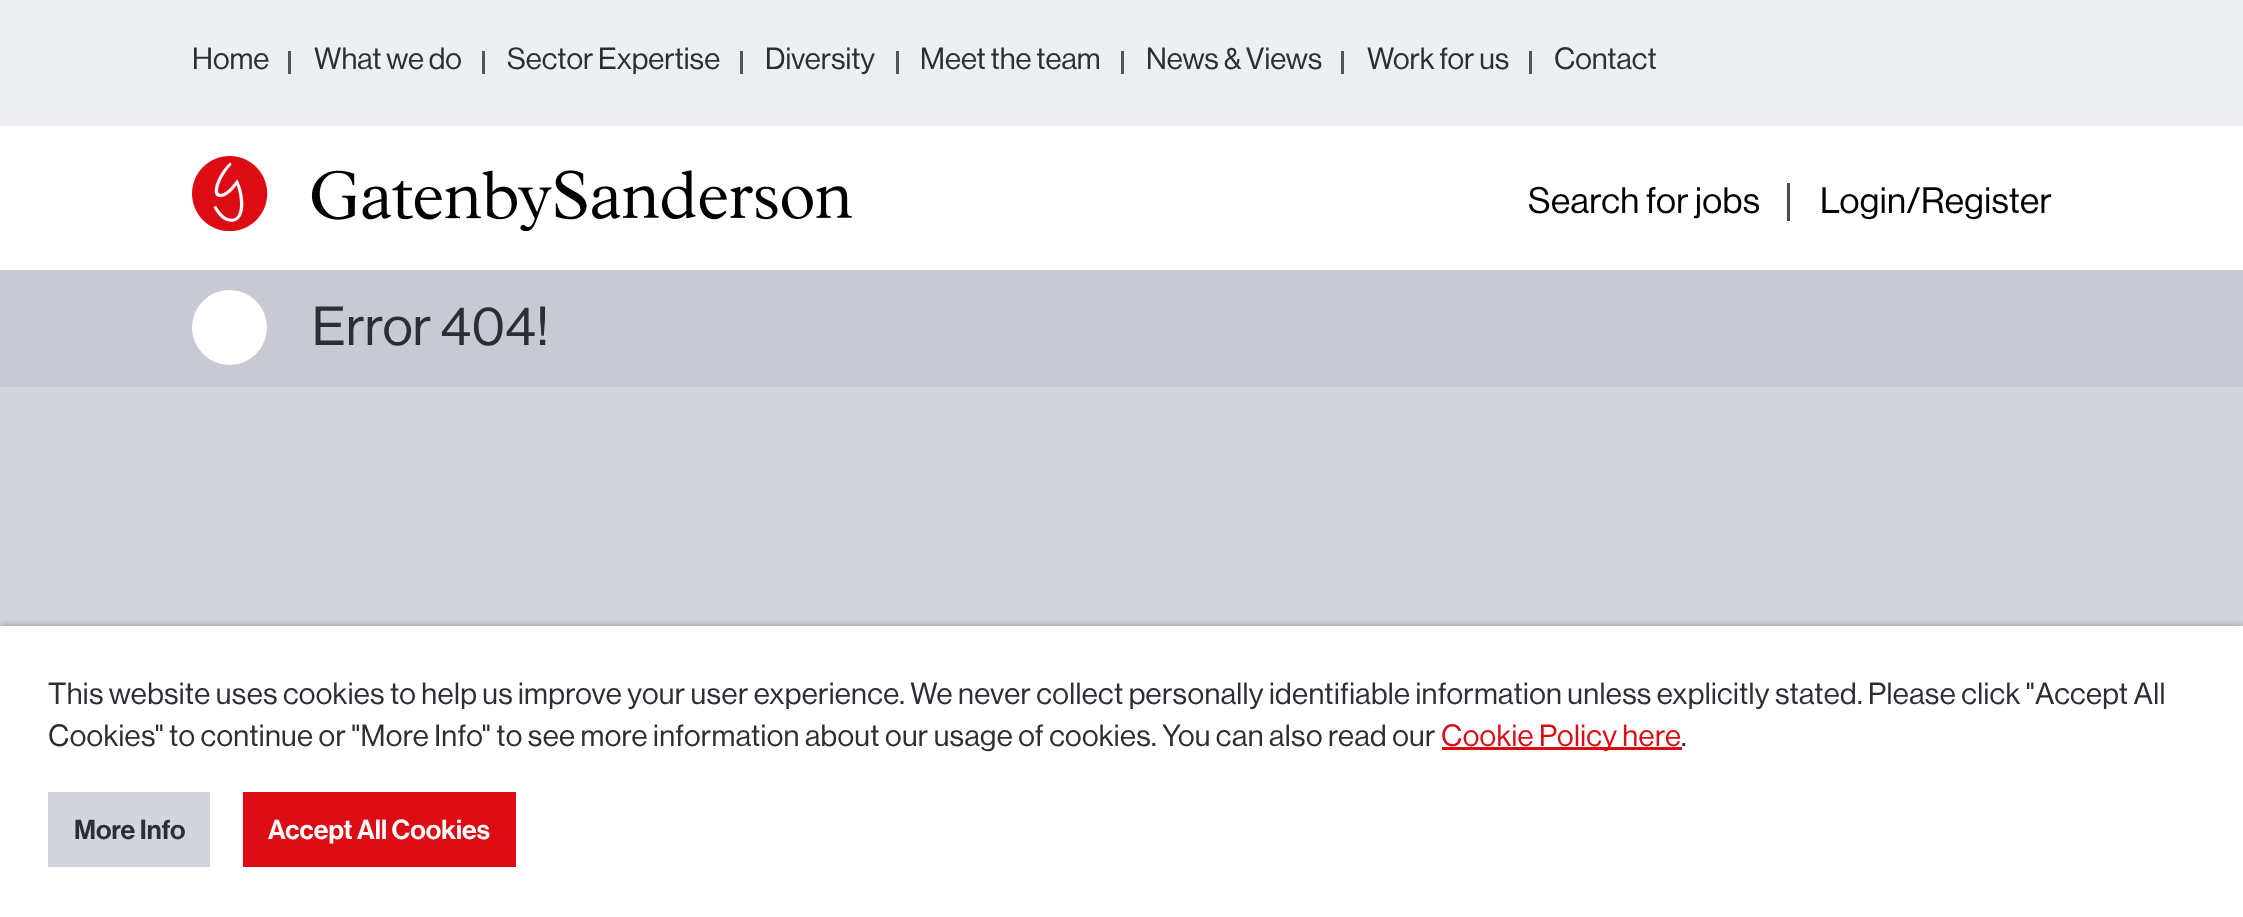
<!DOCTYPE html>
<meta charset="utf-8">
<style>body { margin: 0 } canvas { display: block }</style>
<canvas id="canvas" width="2243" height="917"></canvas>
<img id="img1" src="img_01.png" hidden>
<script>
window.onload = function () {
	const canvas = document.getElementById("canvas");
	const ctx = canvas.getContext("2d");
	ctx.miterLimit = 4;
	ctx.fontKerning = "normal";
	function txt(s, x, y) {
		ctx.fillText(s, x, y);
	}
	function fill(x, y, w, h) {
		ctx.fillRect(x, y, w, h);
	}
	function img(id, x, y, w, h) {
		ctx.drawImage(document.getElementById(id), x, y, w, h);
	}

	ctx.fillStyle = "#FFFFFF";
	fill(0, 0, 2243, 917);
	ctx.fillStyle = "#EEEFF2";
	fill(0, 0, 2243, 126);
	ctx.fillStyle = "#52555A";
	fill(288, 51, 3, 23);
	fill(482, 51, 3, 23);
	fill(740, 51, 3, 23);
	fill(896, 51, 3, 23);
	fill(1121, 51, 3, 23);
	fill(1341, 51, 3, 23);
	fill(1529, 51, 3, 23);
	img("img1", 192, 156, 660, 75);
	ctx.fillStyle = "#4B4D52";
	fill(1787, 183, 3, 38);
	ctx.fillStyle = "#C9C9D4";
	fill(0, 270, 2243, 117);
	ctx.fillStyle = "#FFFFFF";
	ctx.beginPath();
	ctx.arc(229.5, 327.5, 37.5, 0, Math.PI * 2);
	ctx.fill();
	ctx.fillStyle = "#D4D4DC";
	fill(0, 387, 2243, 239);
	ctx.fillStyle = "rgba(0, 0, 0, 0.2)";
	ctx.filter = "blur(3px)";
	ctx.beginPath();
	ctx.rect(0, 624, 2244, 293);
	ctx.fill();
	ctx.filter = "none";
	ctx.fillStyle = "#FFFFFF";
	fill(0, 626, 2243, 291);
	ctx.fillStyle = "#DC0C15";
	fill(1442, 747, 240, 3);
	ctx.fillStyle = "#D4D4DC";
	fill(48, 792, 162, 75);
	ctx.fillStyle = "#DC0C15";
	fill(243, 792, 273, 75);
	ctx.font = "30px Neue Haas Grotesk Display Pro";
	ctx.fillStyle = "#2B2E34";
	txt("Home", 192, 69);
	txt("What we do", 314, 69);
	txt("Sector Expertise", 507, 69);
	txt("Diversity", 765, 69);
	txt("Meet the team", 920, 69);
	txt("News & Views", 1146, 69);
	txt("Work for us", 1367, 69);
	txt("Contact", 1554, 69);
	ctx.letterSpacing = "0.36px";
	ctx.font = "36px Neue Haas Grotesk Display Pro";
	ctx.fillStyle = "#030206";
	txt("Search for jobs", 1528, 213);
	txt("Login/Register", 1820, 213);
	ctx.font = "54px Neue Haas Grotesk Display Pro";
	ctx.fillStyle = "#2B2E34";
	txt("Error 404!", 312, 345);
	ctx.font = "30px Neue Haas Grotesk Display Pro";
	txt("This website uses cookies to help us improve your user experience. We never collect personally identifiable information unless explicitly stated. Please click \"Accept All", 48, 704);
	txt("Cookies\" to continue or \"More Info\" to see more information about our usage of cookies. You can also read our", 48, 746);
	ctx.fillStyle = "#DC0C15";
	txt("Cookie Policy here", 1441, 746);
	ctx.fillStyle = "#2B2E34";
	txt(".", 1681, 746);
	ctx.letterSpacing = "0px";
	ctx.font = "600 27px Neue Haas Grotesk Display Pro";
	txt("More Info", 74, 839);
	ctx.fillStyle = "#FFFFFF";
	txt("Accept All Cookies", 268, 839);
};
</script>
